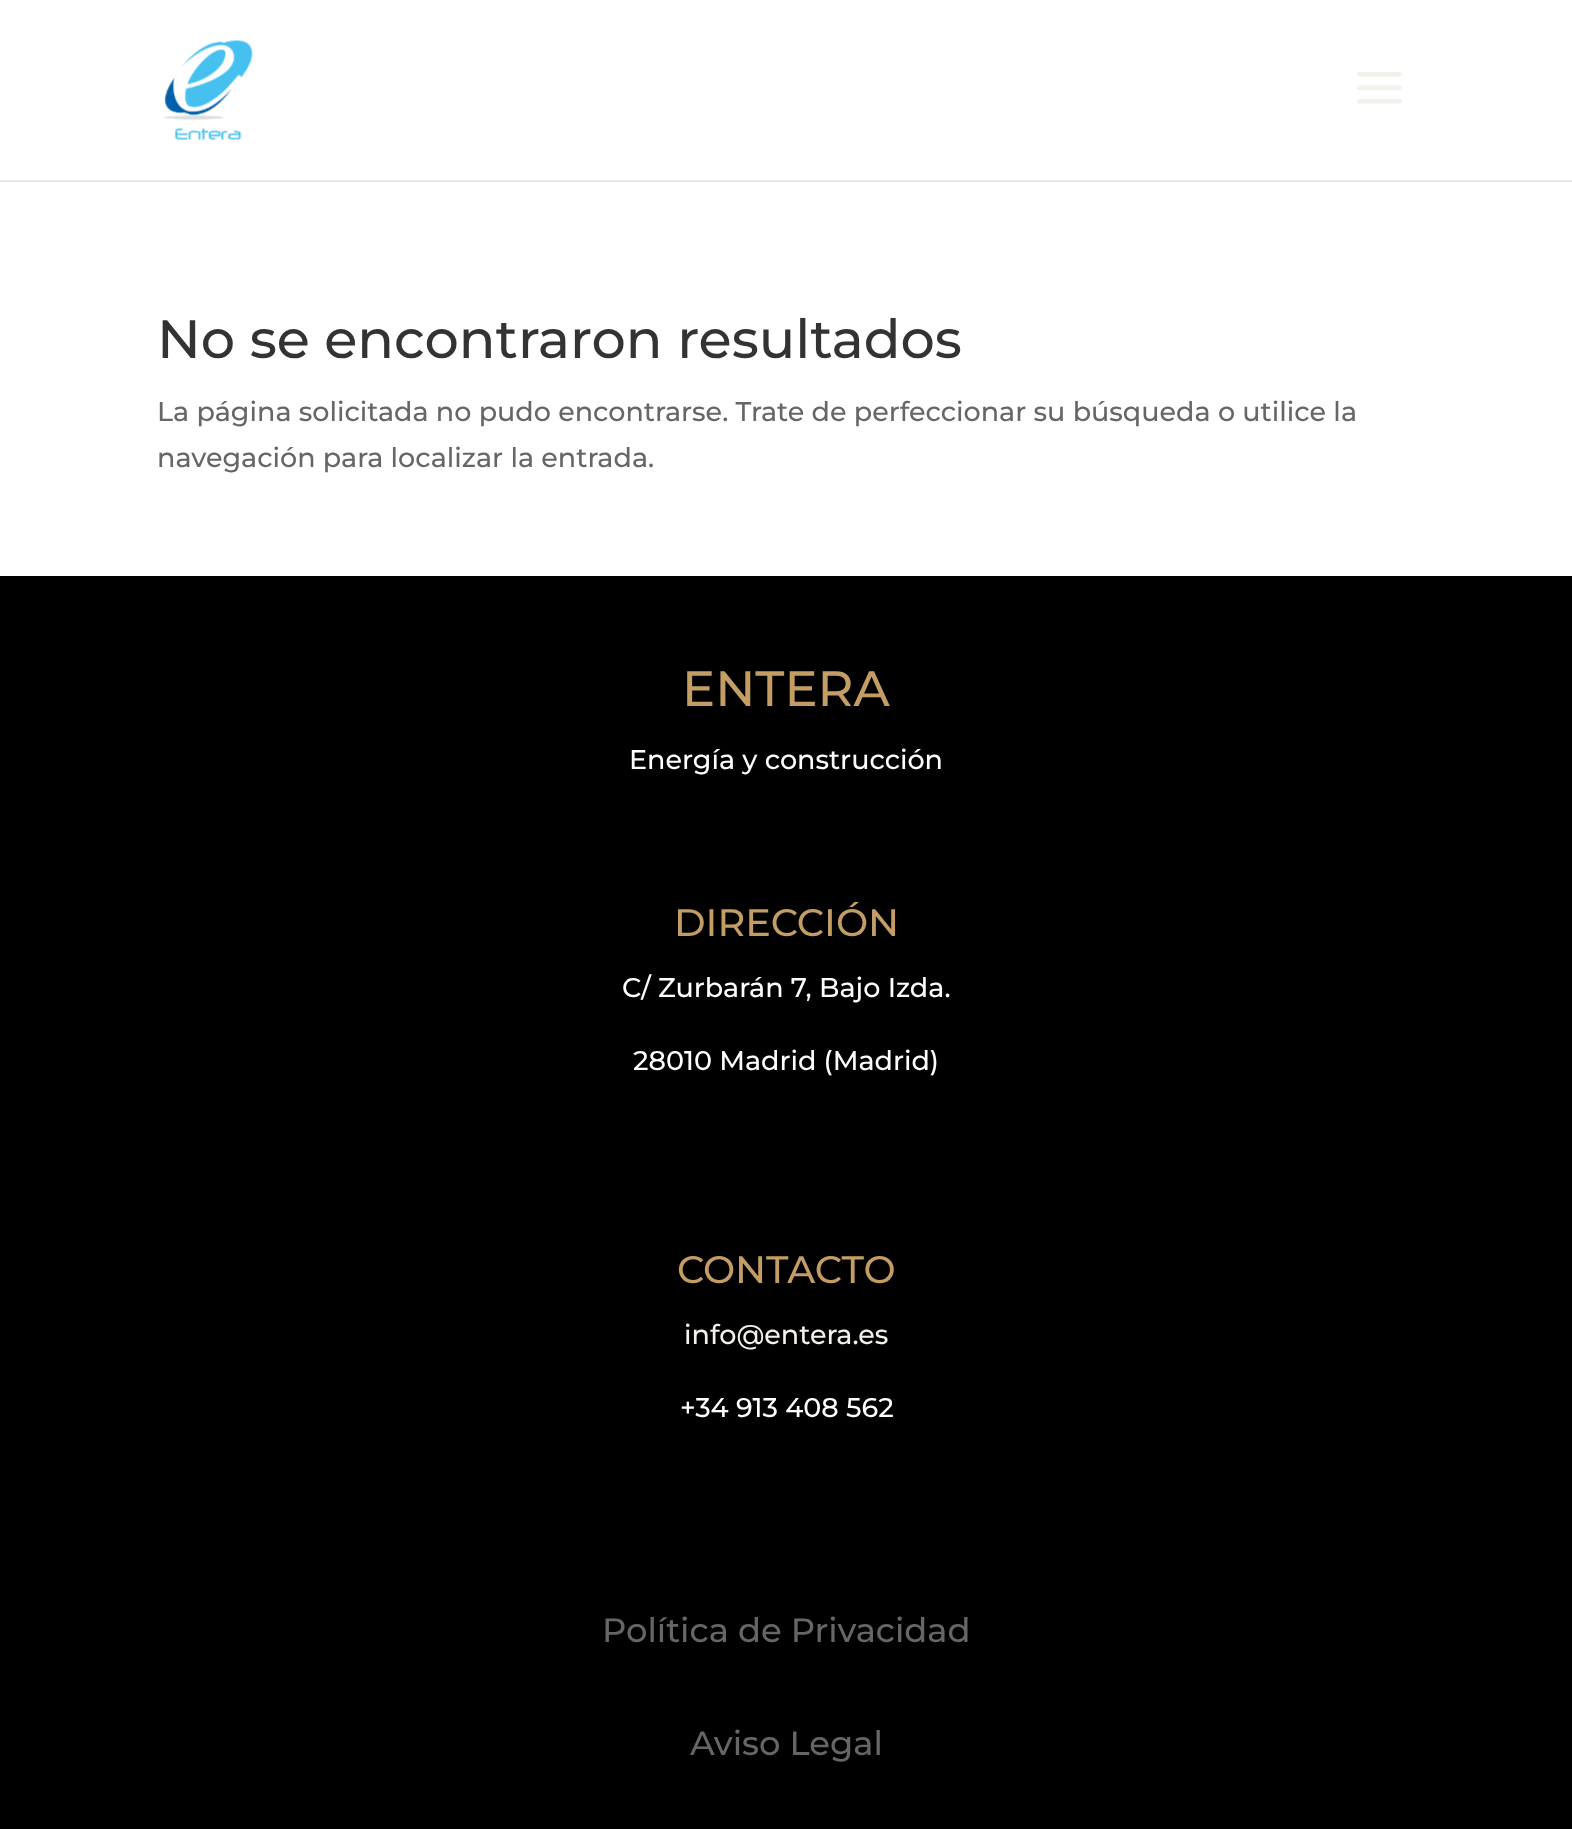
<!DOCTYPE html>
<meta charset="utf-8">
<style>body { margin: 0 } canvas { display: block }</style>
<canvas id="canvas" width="1572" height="1829"></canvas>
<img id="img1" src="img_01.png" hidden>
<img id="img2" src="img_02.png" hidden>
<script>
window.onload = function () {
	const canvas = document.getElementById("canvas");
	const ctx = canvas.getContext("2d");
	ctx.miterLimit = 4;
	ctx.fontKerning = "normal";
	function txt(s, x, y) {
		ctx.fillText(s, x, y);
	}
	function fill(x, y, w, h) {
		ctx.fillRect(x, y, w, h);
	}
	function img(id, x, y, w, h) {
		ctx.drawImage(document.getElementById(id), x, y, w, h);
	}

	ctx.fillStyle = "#FFFFFF";
	fill(0, 0, 1572, 1829);
	ctx.fillStyle = "#E6E6E6";
	ctx.beginPath();
	ctx.moveTo(0, 180);
	ctx.lineTo(0, 182);
	ctx.lineTo(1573, 182);
	ctx.lineTo(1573, 2);
	ctx.lineTo(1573, 180);
	ctx.closePath();
	ctx.fill();
	img("img1", 164, 40, 89, 100);
	img("img2", 1357, 72, 45, 32);
	ctx.fillStyle = "#000000";
	fill(0, 576, 1572, 1253);
	ctx.font = "500 54px Montserrat";
	ctx.fillStyle = "#333333";
	txt("No se encontraron resultados", 157, 358);
	ctx.font = "500 27px Montserrat";
	ctx.fillStyle = "#666666";
	txt("La página solicitada no pudo encontrarse. Trate de perfeccionar su búsqueda o utilice la", 157, 421);
	txt("navegación para localizar la entrada.", 157, 467);
	ctx.font = "500 49.5px Montserrat";
	ctx.fillStyle = "#C39D63";
	txt("ENTERA", 682, 706);
	ctx.font = "500 27px Montserrat";
	ctx.fillStyle = "#FFFFFF";
	txt("Energía y construcción", 629, 769);
	ctx.font = "500 38.25px Montserrat";
	ctx.fillStyle = "#C39D63";
	txt("DIRECCIÓN", 674, 936);
	ctx.font = "500 27px Montserrat";
	ctx.fillStyle = "#FFFFFF";
	txt("C/ Zurbarán 7, Bajo Izda.", 622, 997);
	txt("28010 Madrid (Madrid)", 633, 1070);
	ctx.font = "500 38.25px Montserrat";
	ctx.fillStyle = "#C39D63";
	txt("CONTACTO", 677, 1283);
	ctx.font = "500 27px Montserrat";
	ctx.fillStyle = "#F4F1EB";
	txt("info@entera.es", 684, 1344);
	ctx.fillStyle = "#FFFFFF";
	txt("+34 913 408 562", 680, 1417);
	ctx.font = "500 33.75px Montserrat";
	ctx.fillStyle = "#666666";
	txt("Política de Privacidad", 602, 1642);
	txt("Aviso Legal", 690, 1755);
};
</script>
